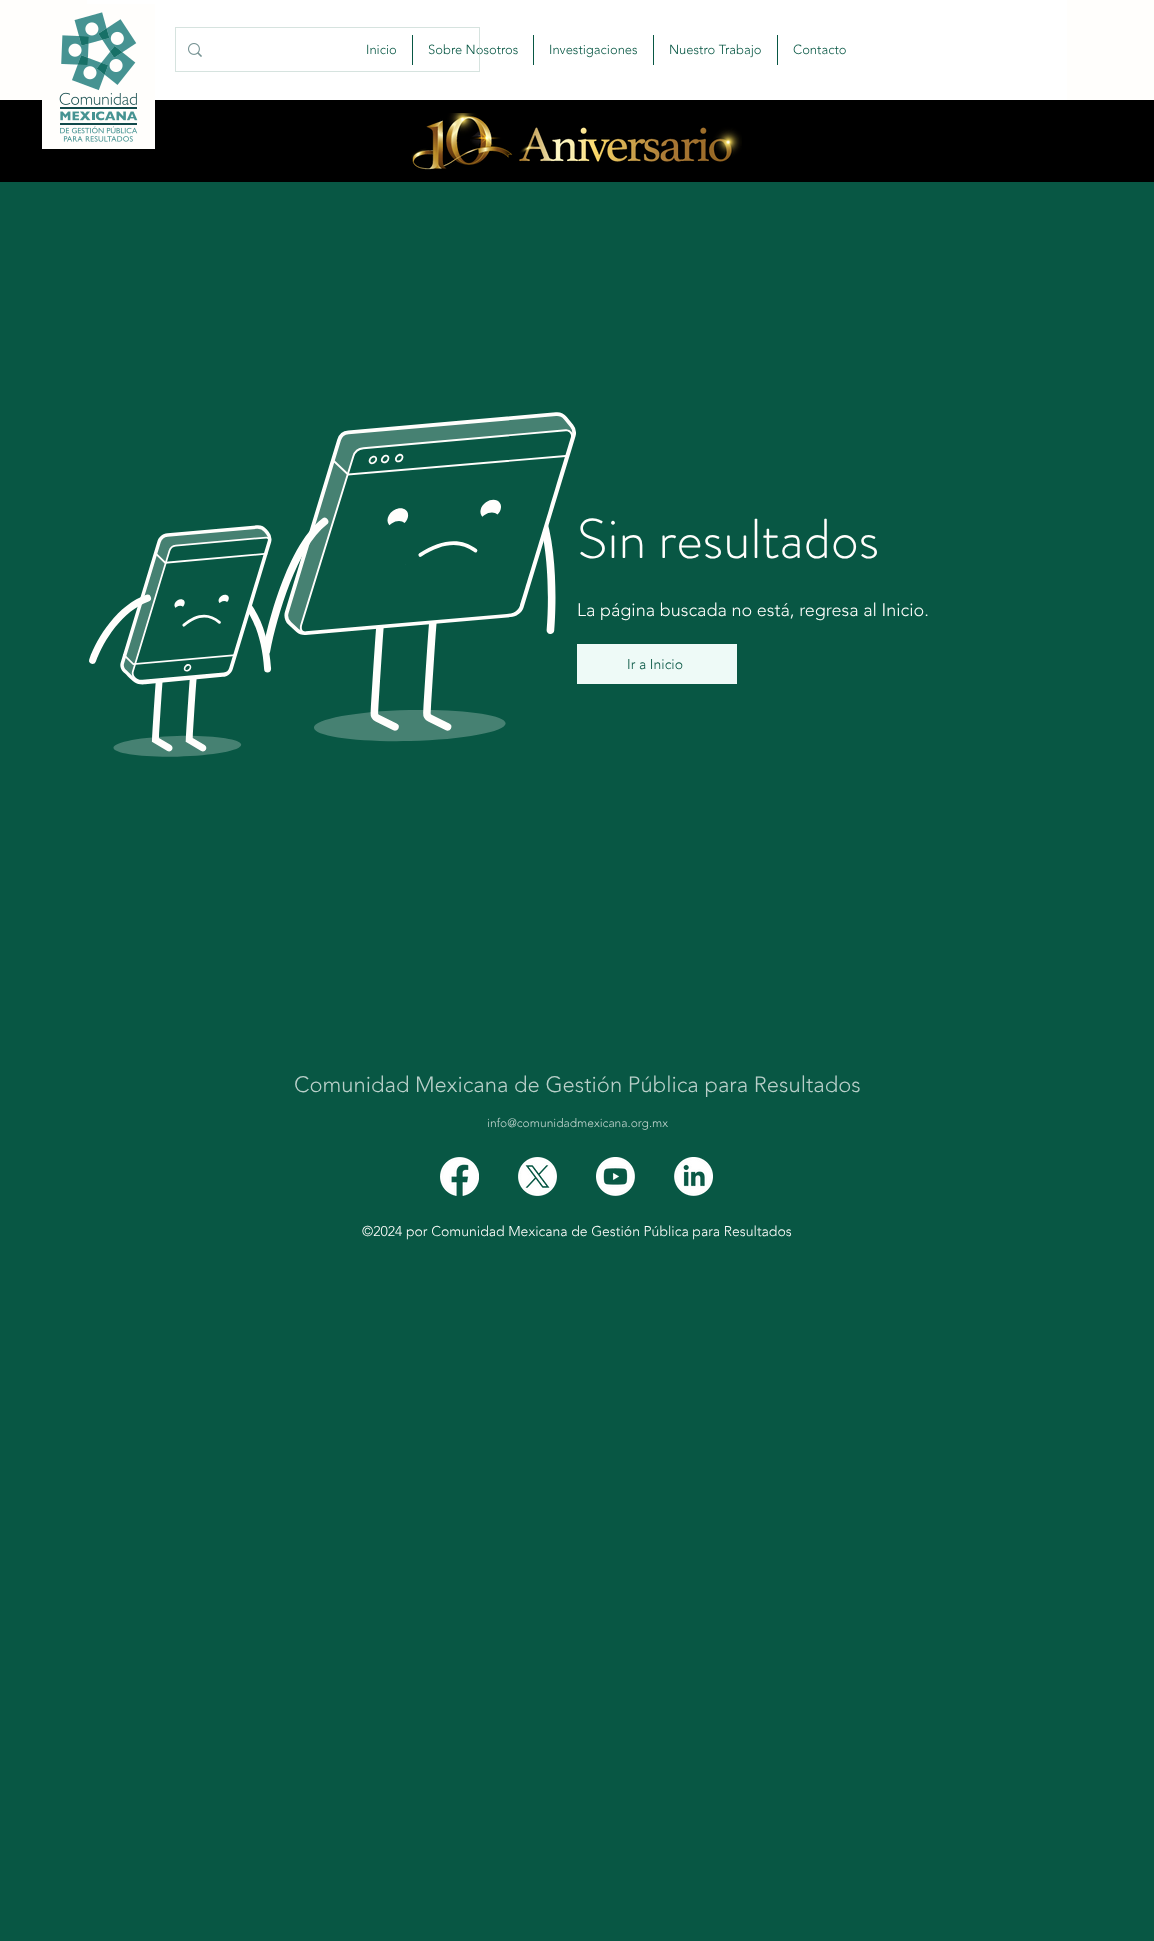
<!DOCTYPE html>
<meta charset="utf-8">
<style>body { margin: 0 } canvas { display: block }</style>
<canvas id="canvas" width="1154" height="1941"></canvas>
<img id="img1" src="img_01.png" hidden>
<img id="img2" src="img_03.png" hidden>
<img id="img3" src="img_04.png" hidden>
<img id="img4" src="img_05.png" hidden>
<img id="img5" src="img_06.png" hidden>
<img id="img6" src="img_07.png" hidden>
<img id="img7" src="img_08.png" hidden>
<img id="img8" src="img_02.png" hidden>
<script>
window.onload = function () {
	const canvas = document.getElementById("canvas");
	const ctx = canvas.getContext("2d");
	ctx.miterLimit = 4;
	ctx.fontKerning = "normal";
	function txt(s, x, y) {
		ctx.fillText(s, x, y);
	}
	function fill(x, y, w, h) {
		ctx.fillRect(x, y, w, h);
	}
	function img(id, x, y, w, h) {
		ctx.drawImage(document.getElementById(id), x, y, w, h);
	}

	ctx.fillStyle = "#085744";
	fill(0, 0, 1154, 1941);
	ctx.fillStyle = "#FFFEFC";
	fill(0, 0, 1154, 100);
	ctx.fillStyle = "#FFFFFF";
	fill(87, 0, 980, 100);
	ctx.fillStyle = "#000000";
	fill(0, 100, 1154, 82);
	ctx.fillStyle = "#FFFEFC";
	fill(42, 4, 113, 145);
	img("img1", 59, 12, 79, 130);
	ctx.fillStyle = "#085744";
	fill(412, 35, 1, 30);
	fill(533, 35, 1, 30);
	fill(653, 35, 1, 30);
	fill(777, 35, 1, 30);
	img("img2", 411, 113, 331, 57);
	img("img3", 89, 412, 487, 345);
	ctx.fillStyle = "#EEFAF7";
	fill(577, 644, 160, 40);
	img("img4", 440, 1157, 39, 39);
	img("img5", 518, 1157, 39, 39);
	img("img6", 596, 1157, 39, 39);
	img("img7", 674, 1157, 39, 39);
	ctx.font = "300 13px 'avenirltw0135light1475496'";
	ctx.fillStyle = "#085744";
	txt("Inicio", 366, 54);
	txt("Sobre Nosotros", 428, 54);
	ctx.strokeStyle = "rgba(193, 212, 206, 0.66)";
	ctx.strokeRect(175.5, 27.5, 304, 44);
	img("img8", 188, 43, 14, 14);
	txt("Investigaciones", 549, 54);
	txt("Nuestro Trabajo", 669, 54);
	txt("Contacto", 793, 54);
	ctx.font = "300 56px 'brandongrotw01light'";
	ctx.fillStyle = "#FFFEFC";
	txt("Sin resultados", 577, 558);
	ctx.font = "300 18px 'avenirltw0135light1475496'";
	txt("La página buscada no está, regresa al Inicio.", 577, 616);
	ctx.font = "300 14px 'avenirltw0135light1475496'";
	ctx.fillStyle = "#085744";
	txt("Ir a Inicio", 627, 669);
	ctx.font = "300 22px 'avenirltw0135light1475496'";
	ctx.fillStyle = "#B9CFC9";
	txt("Comunidad Mexicana de Gestión Pública para Resultados", 294, 1092);
	ctx.font = "300 12px 'avenirltw0135light1475496'";
	ctx.fillStyle = "#C1D4CE";
	txt("info@comunidadmexicana.org.mx", 487, 1127);
	ctx.font = "300 14px 'avenirltw0135light1475496'";
	ctx.fillStyle = "#FFFEFC";
	txt("©2024 por Comunidad Mexicana de Gestión Pública para Resultados", 362, 1236);
};
</script>
